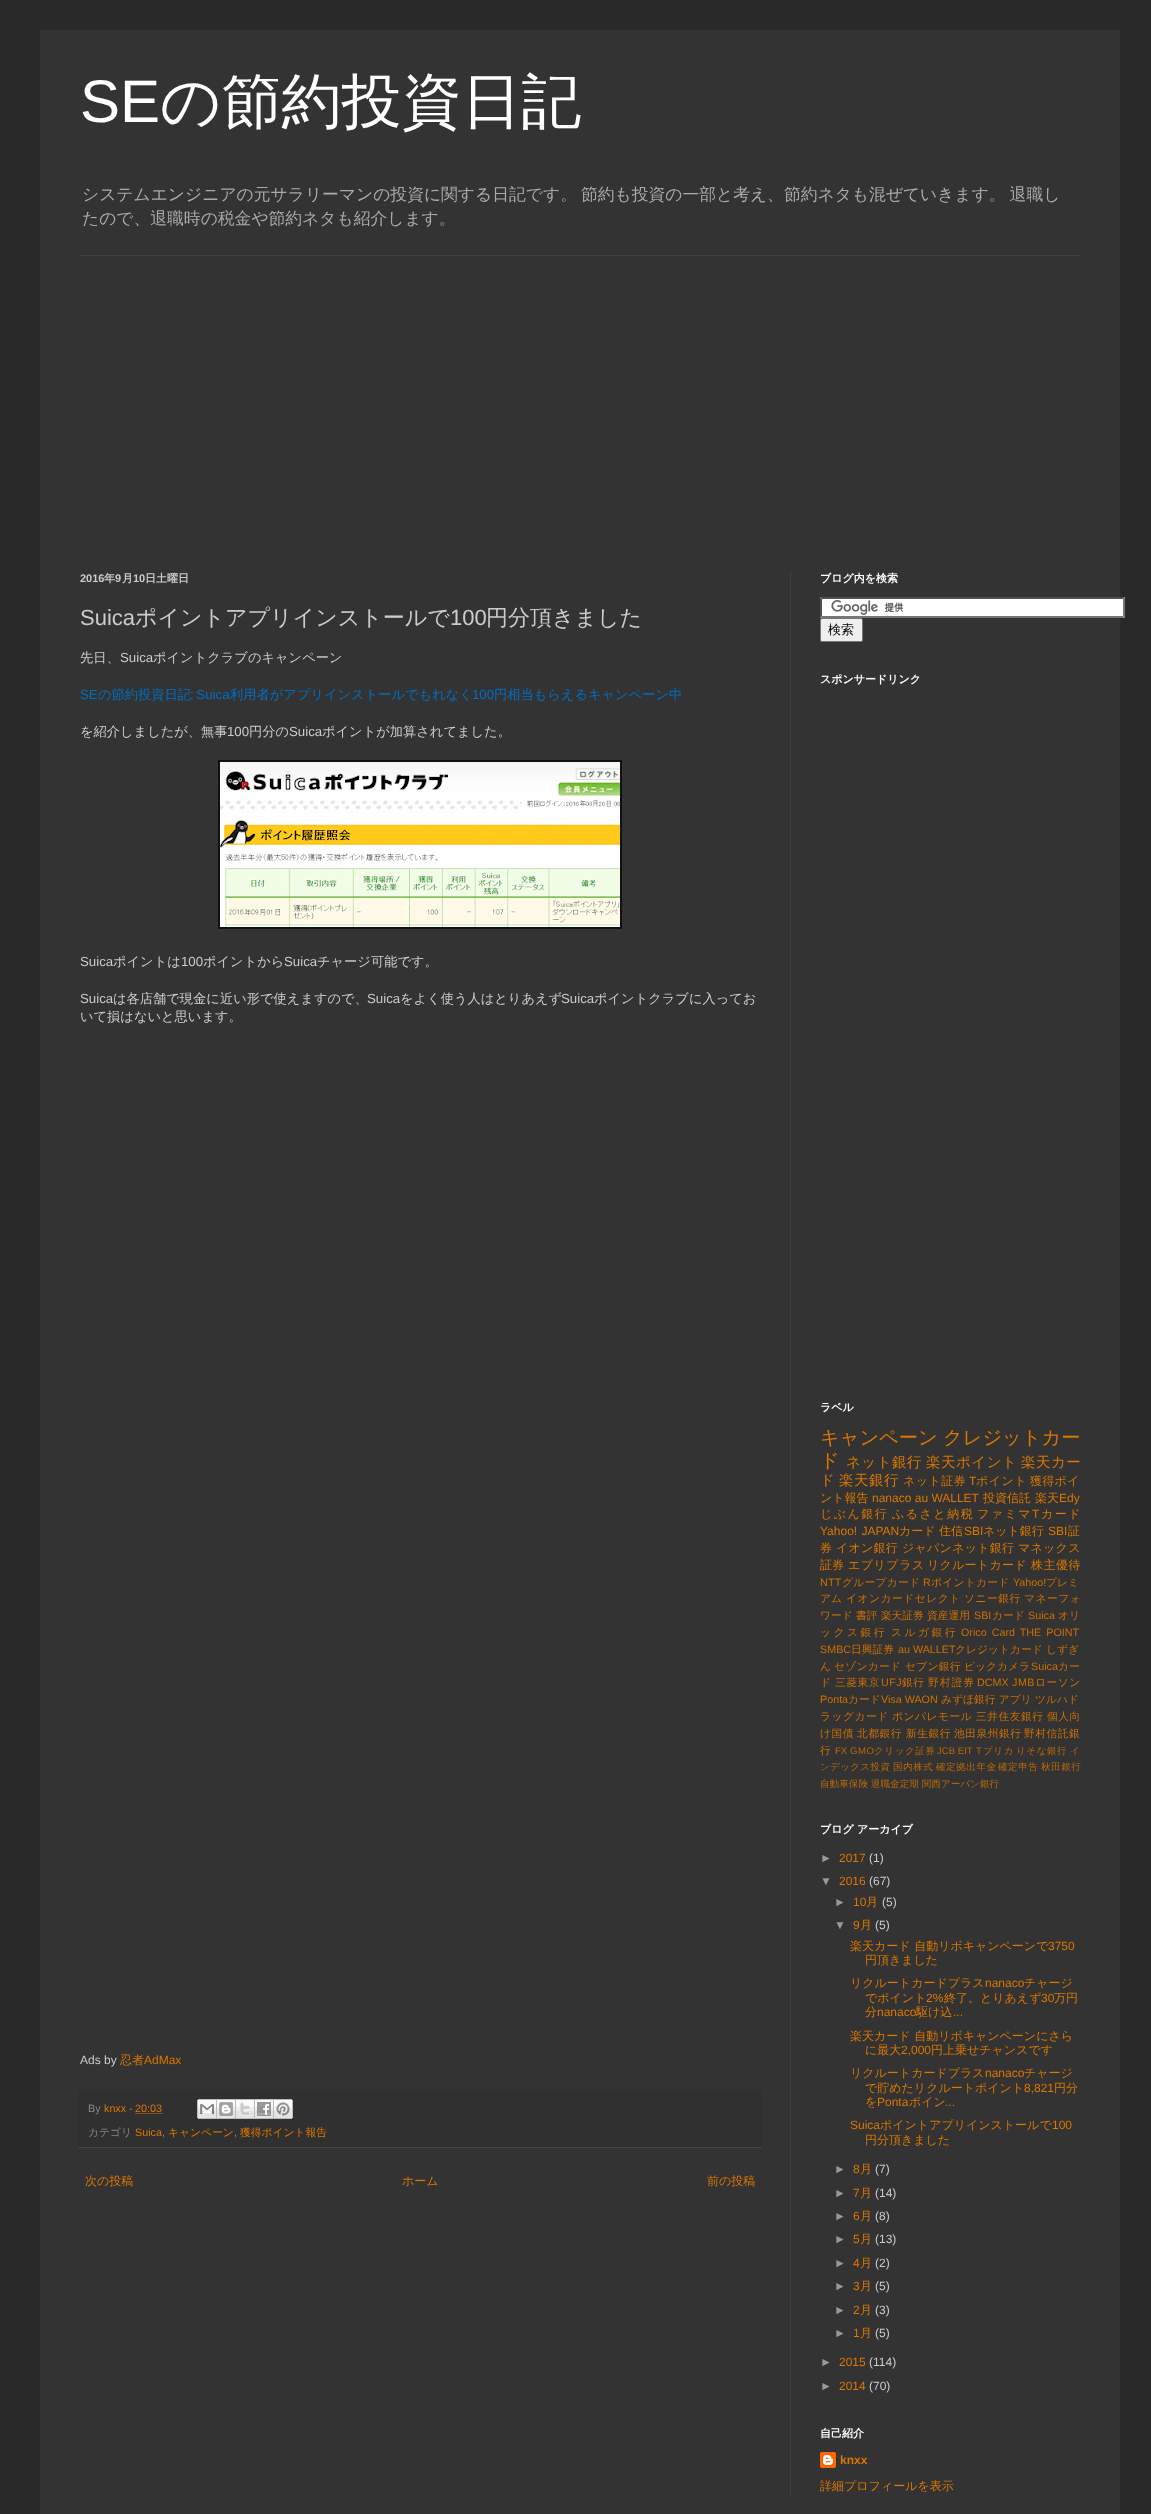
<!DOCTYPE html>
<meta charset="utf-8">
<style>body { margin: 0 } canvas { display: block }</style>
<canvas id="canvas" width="1151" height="2514"></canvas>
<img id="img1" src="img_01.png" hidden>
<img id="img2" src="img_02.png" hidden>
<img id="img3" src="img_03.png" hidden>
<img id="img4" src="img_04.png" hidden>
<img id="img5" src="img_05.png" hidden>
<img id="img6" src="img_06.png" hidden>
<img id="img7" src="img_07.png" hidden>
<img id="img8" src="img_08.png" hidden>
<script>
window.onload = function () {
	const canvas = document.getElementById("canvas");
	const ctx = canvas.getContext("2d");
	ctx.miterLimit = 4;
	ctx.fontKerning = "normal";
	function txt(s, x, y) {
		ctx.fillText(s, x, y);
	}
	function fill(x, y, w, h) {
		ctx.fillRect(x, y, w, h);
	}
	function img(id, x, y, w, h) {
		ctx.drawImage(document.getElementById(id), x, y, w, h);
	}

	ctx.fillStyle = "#292929";
	fill(0, 0, 1151, 2514);
	ctx.fillStyle = "#333333";
	fill(40, 30, 1080, 2484);
	ctx.fillStyle = "#404040";
	fill(80, 255, 1000, 1);
	fill(790, 571, 1, 1924);
	ctx.fillStyle = "#111111";
	fill(218, 760, 404, 169);
	img("img1", 220, 762, 400, 165);
	ctx.fillStyle = "#303030";
	fill(78, 2089, 684, 58);
	ctx.fillStyle = "#444444";
	fill(78, 2147, 684, 1);
	ctx.beginPath();
	ctx.moveTo(135.5, 2113.5);
	ctx.lineTo(162.5, 2113.5);
	ctx.strokeStyle = "#DD7700";
	ctx.setLineDash([1, 1]);
	ctx.stroke();
	img("img2", 197, 2099, 20, 20);
	img("img3", 217, 2099, 19, 20);
	img("img4", 236, 2099, 19, 20);
	img("img5", 255, 2099, 19, 20);
	img("img6", 274, 2099, 19, 20);
	ctx.fillStyle = "#FFFFFF";
	fill(820, 597, 305, 21);
	img("img7", 831, 600, 73, 15);
	ctx.fillStyle = "#4F4F4F";
	ctx.beginPath();
	ctx.moveTo(820, 597);
	ctx.lineTo(1125, 597);
	ctx.lineTo(1123, 599);
	ctx.lineTo(822, 599);
	ctx.closePath();
	ctx.fill();
	ctx.fillStyle = "#767676";
	ctx.beginPath();
	ctx.moveTo(1125, 597);
	ctx.lineTo(1125, 618);
	ctx.lineTo(1123, 616);
	ctx.lineTo(1123, 599);
	ctx.closePath();
	ctx.fill();
	ctx.beginPath();
	ctx.moveTo(1125, 618);
	ctx.lineTo(820, 618);
	ctx.lineTo(822, 616);
	ctx.lineTo(1123, 616);
	ctx.closePath();
	ctx.fill();
	ctx.fillStyle = "#4F4F4F";
	ctx.beginPath();
	ctx.moveTo(820, 618);
	ctx.lineTo(820, 597);
	ctx.lineTo(822, 599);
	ctx.lineTo(822, 616);
	ctx.closePath();
	ctx.fill();
	ctx.fillStyle = "#EFEFEF";
	ctx.beginPath();
	ctx.roundRect(820.5, 618.5, 42, 23, 1.5);
	ctx.fill();
	ctx.strokeStyle = "#767676";
	ctx.setLineDash([]);
	ctx.stroke();
	img("img8", 820, 2452, 16, 16);
	ctx.font = "60px Liberation Sans";
	ctx.fillStyle = "#FFFFFF";
	txt("SE", 80, 122);
	ctx.font = "500 60px WenQuanYi Zen Hei";
	txt("の節約投資日記", 160, 122);
	ctx.wordSpacing = "-1px";
	ctx.font = "500 16.8px WenQuanYi Zen Hei";
	ctx.fillStyle = "#AAAAAA";
	txt("システムエンジニアの元サラリーマンの投資に関する日記です。 節約も投資の一部と考え、節約ネタも混ぜていきます。 退職し", 82, 200);
	ctx.wordSpacing = "0px";
	txt("たので、退職時の税金や節約ネタも紹介します。", 82, 224);
	ctx.font = "bold 11px Liberation Sans";
	ctx.fillStyle = "#CCCCCC";
	txt("2016", 80, 582);
	ctx.font = "bold 11px WenQuanYi Zen Hei";
	txt("年", 104, 582);
	ctx.font = "bold 11px Liberation Sans";
	txt("9", 115, 582);
	ctx.font = "bold 11px WenQuanYi Zen Hei";
	txt("月", 122, 582);
	ctx.font = "bold 11px Liberation Sans";
	txt("10", 133, 582);
	ctx.font = "bold 11px WenQuanYi Zen Hei";
	txt("日土曜日", 145, 582);
	ctx.font = "22px Liberation Sans";
	txt("Suica", 80, 625);
	ctx.font = "500 22px WenQuanYi Zen Hei";
	txt("ポイントアプリインストールで", 135, 625);
	ctx.font = "22px Liberation Sans";
	txt("100", 450, 625);
	ctx.font = "500 22px WenQuanYi Zen Hei";
	txt("円分頂きました", 486, 625);
	ctx.font = "500 13.25px WenQuanYi Zen Hei";
	txt("先日、", 80, 662);
	ctx.font = "13.25px Liberation Sans";
	txt("Suica", 120, 662);
	ctx.font = "500 13.25px WenQuanYi Zen Hei";
	txt("ポイントクラブのキャンペーン", 153, 662);
	ctx.font = "13.25px Liberation Sans";
	ctx.fillStyle = "#0070C5";
	txt("SE", 80, 699);
	ctx.font = "500 13.25px WenQuanYi Zen Hei";
	txt("の節約投資日記", 98, 699);
	ctx.wordSpacing = "-1px";
	ctx.font = "13.25px Liberation Sans";
	txt(": Suica", 190, 699);
	ctx.wordSpacing = "0px";
	ctx.font = "500 13.25px WenQuanYi Zen Hei";
	txt("利用者がアプリインストールでもれなく", 230, 699);
	ctx.font = "13.25px Liberation Sans";
	txt("100", 472, 699);
	ctx.font = "500 13.25px WenQuanYi Zen Hei";
	txt("円相当もらえるキャンペーン中", 494, 699);
	ctx.fillStyle = "#CCCCCC";
	txt("を紹介しましたが、無事", 80, 736);
	ctx.font = "13.25px Liberation Sans";
	txt("100", 227, 736);
	ctx.font = "500 13.25px WenQuanYi Zen Hei";
	txt("円分の", 249, 736);
	ctx.font = "13.25px Liberation Sans";
	txt("Suica", 289, 736);
	ctx.font = "500 13.25px WenQuanYi Zen Hei";
	txt("ポイントが加算されてました。", 322, 736);
	ctx.font = "13.25px Liberation Sans";
	txt("Suica", 80, 966);
	ctx.font = "500 13.25px WenQuanYi Zen Hei";
	txt("ポイントは", 113, 966);
	ctx.font = "13.25px Liberation Sans";
	txt("100", 181, 966);
	ctx.font = "500 13.25px WenQuanYi Zen Hei";
	txt("ポイントから", 203, 966);
	ctx.font = "13.25px Liberation Sans";
	txt("Suica", 284, 966);
	ctx.font = "500 13.25px WenQuanYi Zen Hei";
	txt("チャージ可能です。", 317, 966);
	ctx.font = "13.25px Liberation Sans";
	txt("Suica", 80, 1003);
	ctx.font = "500 13.25px WenQuanYi Zen Hei";
	txt("は各店舗で現金に近い形で使えますので、", 113, 1003);
	ctx.font = "13.25px Liberation Sans";
	txt("Suica", 367, 1003);
	ctx.font = "500 13.25px WenQuanYi Zen Hei";
	txt("をよく使う人はとりあえず", 400, 1003);
	ctx.font = "13.25px Liberation Sans";
	txt("Suica", 561, 1003);
	ctx.font = "500 13.25px WenQuanYi Zen Hei";
	txt("ポイントクラブに入ってお", 594, 1003);
	txt("いて損はないと思います。", 80, 1021);
	ctx.font = "12px Liberation Sans";
	txt("Ads by", 80, 2064);
	ctx.font = "500 12px WenQuanYi Zen Hei";
	ctx.fillStyle = "#DD7700";
	txt("忍者", 120, 2064);
	ctx.font = "12px Liberation Sans";
	txt("AdMax", 144, 2064);
	ctx.font = "10.75px Liberation Sans";
	ctx.fillStyle = "#888888";
	txt("By", 88, 2112);
	ctx.fillStyle = "#DD7700";
	txt("knxx", 104, 2112);
	ctx.fillStyle = "#888888";
	txt("-", 129, 2112);
	ctx.fillStyle = "#DD7700";
	txt("20:03", 135, 2112);
	ctx.font = "500 10.75px WenQuanYi Zen Hei";
	ctx.fillStyle = "#888888";
	txt("カテゴリ", 88, 2136);
	ctx.font = "10.75px Liberation Sans";
	ctx.fillStyle = "#DD7700";
	txt("Suica", 135, 2136);
	ctx.fillStyle = "#888888";
	txt(",", 162, 2136);
	ctx.font = "500 10.75px WenQuanYi Zen Hei";
	ctx.fillStyle = "#DD7700";
	txt("キャンペーン", 168, 2136);
	ctx.font = "10.75px Liberation Sans";
	ctx.fillStyle = "#888888";
	txt(",", 234, 2136);
	ctx.font = "500 10.75px WenQuanYi Zen Hei";
	ctx.fillStyle = "#DD7700";
	txt("獲得ポイント報告", 240, 2136);
	ctx.font = "500 12px WenQuanYi Zen Hei";
	txt("次の投稿", 85, 2185);
	txt("ホーム", 402, 2185);
	txt("前の投稿", 707, 2185);
	ctx.font = "bold 11px WenQuanYi Zen Hei";
	ctx.fillStyle = "#FFFFFF";
	txt("ブログ内を検索", 820, 582);
	ctx.font = "500 13px WenQuanYi Zen Hei";
	ctx.fillStyle = "#000000";
	txt("検索", 828, 634);
	ctx.font = "bold 11px WenQuanYi Zen Hei";
	ctx.fillStyle = "#FFFFFF";
	txt("スポンサードリンク", 820, 683);
	txt("ラベル", 820, 1411);
	ctx.font = "500 19.25px WenQuanYi Zen Hei";
	ctx.fillStyle = "#DD7700";
	txt("キャンペーン", 820, 1444);
	txt("クレジットカー", 943, 1444);
	txt("ド", 820, 1467);
	ctx.letterSpacing = "0.5px";
	ctx.font = "500 14.5px WenQuanYi Zen Hei";
	txt("ネット銀行", 846, 1467);
	txt("楽天ポイント", 926, 1467);
	txt("楽天カー", 1021, 1467);
	ctx.letterSpacing = "0px";
	txt("ド", 820, 1485);
	ctx.letterSpacing = "0.5px";
	txt("楽天銀行", 839, 1485);
	ctx.font = "500 12px WenQuanYi Zen Hei";
	txt("ネット証券", 903, 1485);
	ctx.font = "12px Liberation Sans";
	txt("T", 969, 1485);
	ctx.font = "500 12px WenQuanYi Zen Hei";
	txt("ポイント", 976, 1485);
	ctx.letterSpacing = "0.25px";
	txt("獲得ポイ", 1030, 1485);
	ctx.letterSpacing = "0px";
	txt("ント報告", 820, 1502);
	ctx.font = "12px Liberation Sans";
	txt("nanaco au WALLET", 872, 1502);
	ctx.font = "500 12px WenQuanYi Zen Hei";
	txt("投資信託", 983, 1502);
	txt("楽天", 1035, 1502);
	ctx.font = "12px Liberation Sans";
	txt("Edy", 1059, 1502);
	ctx.letterSpacing = "1.5px";
	ctx.font = "500 12px WenQuanYi Zen Hei";
	txt("じぶん銀行", 820, 1518);
	txt("ふるさと納税", 892, 1518);
	txt("ファミマ", 977, 1518);
	ctx.font = "12px Liberation Sans";
	txt("T", 1032, 1518);
	ctx.font = "500 12px WenQuanYi Zen Hei";
	txt("カード", 1041, 1518);
	ctx.letterSpacing = "0px";
	ctx.wordSpacing = "1px";
	ctx.font = "12px Liberation Sans";
	txt("Yahoo! JAPAN", 820, 1535);
	ctx.wordSpacing = "0px";
	ctx.font = "500 12px WenQuanYi Zen Hei";
	txt("カード", 899, 1535);
	txt("住信", 939, 1535);
	ctx.font = "12px Liberation Sans";
	txt("SBI", 964, 1535);
	ctx.font = "500 12px WenQuanYi Zen Hei";
	txt("ネット銀行", 983, 1535);
	ctx.font = "12px Liberation Sans";
	txt("SBI", 1048, 1535);
	ctx.font = "500 12px WenQuanYi Zen Hei";
	txt("証", 1068, 1535);
	txt("券", 820, 1552);
	ctx.letterSpacing = "0.25px";
	txt("イオン銀行", 836, 1552);
	txt("ジャパンネット銀行", 902, 1552);
	txt("マネックス", 1018, 1552);
	ctx.letterSpacing = "0px";
	txt("証券", 820, 1569);
	ctx.letterSpacing = "0.5px";
	txt("エブリプラス", 848, 1569);
	ctx.letterSpacing = "0.25px";
	txt("リクルートカード", 927, 1569);
	ctx.letterSpacing = "0.5px";
	txt("株主優待", 1031, 1569);
	ctx.letterSpacing = "0.25px";
	ctx.font = "10.75px Liberation Sans";
	ctx.fillStyle = "#CC7005";
	txt("NTT", 820, 1586);
	ctx.font = "500 10.75px WenQuanYi Zen Hei";
	txt("グループカード", 842, 1586);
	ctx.font = "10.75px Liberation Sans";
	txt("R", 923, 1586);
	ctx.font = "500 10.75px WenQuanYi Zen Hei";
	txt("ポイントカード", 931, 1586);
	ctx.letterSpacing = "0px";
	ctx.font = "10.75px Liberation Sans";
	txt("Yahoo!", 1013, 1586);
	ctx.font = "500 10.75px WenQuanYi Zen Hei";
	txt("プレミ", 1046, 1586);
	txt("アム", 820, 1602);
	ctx.letterSpacing = "0.5px";
	txt("イオンカードセレクト", 846, 1602);
	txt("ソニー銀行", 964, 1602);
	txt("マネーフォ", 1024, 1602);
	ctx.letterSpacing = "0px";
	txt("ワード 書評 楽天証券 資産運用", 820, 1619);
	ctx.font = "10.75px Liberation Sans";
	txt("SBI", 974, 1619);
	ctx.font = "500 10.75px WenQuanYi Zen Hei";
	txt("カード", 992, 1619);
	ctx.font = "10.75px Liberation Sans";
	txt("Suica", 1028, 1619);
	ctx.font = "500 10.75px WenQuanYi Zen Hei";
	txt("オリ", 1058, 1619);
	ctx.letterSpacing = "2.5px";
	txt("ックス銀行", 820, 1636);
	txt("スルガ銀行", 891, 1636);
	ctx.letterSpacing = "0px";
	ctx.wordSpacing = "2px";
	ctx.font = "10.75px Liberation Sans";
	txt("Orico Card THE POINT", 961, 1636);
	ctx.wordSpacing = "0px";
	txt("SMBC", 820, 1653);
	ctx.font = "500 10.75px WenQuanYi Zen Hei";
	txt("日興証券", 851, 1653);
	ctx.font = "10.75px Liberation Sans";
	txt("au WALLET", 898, 1653);
	ctx.font = "500 10.75px WenQuanYi Zen Hei";
	txt("クレジットカード しずぎ", 955, 1653);
	txt("ん", 820, 1670);
	ctx.letterSpacing = "0.25px";
	txt("セゾンカード", 834, 1670);
	txt("セブン銀行", 905, 1670);
	ctx.letterSpacing = "0px";
	txt("ビックカメラ", 964, 1670);
	ctx.font = "10.75px Liberation Sans";
	txt("Suica", 1031, 1670);
	ctx.font = "500 10.75px WenQuanYi Zen Hei";
	txt("カー", 1058, 1670);
	txt("ド", 820, 1686);
	ctx.letterSpacing = "0.5px";
	txt("三菱東京", 835, 1686);
	ctx.font = "10.75px Liberation Sans";
	txt("UFJ", 881, 1686);
	ctx.font = "500 10.75px WenQuanYi Zen Hei";
	txt("銀行", 902, 1686);
	ctx.letterSpacing = "1px";
	txt("野村證券", 928, 1686);
	ctx.letterSpacing = "0px";
	ctx.font = "10.75px Liberation Sans";
	txt("DCMX", 977, 1686);
	ctx.letterSpacing = "0.5px";
	txt("JMB", 1012, 1686);
	ctx.font = "500 10.75px WenQuanYi Zen Hei";
	txt("ローソン", 1035, 1686);
	ctx.letterSpacing = "0px";
	ctx.font = "10.75px Liberation Sans";
	txt("Ponta", 820, 1703);
	ctx.font = "500 10.75px WenQuanYi Zen Hei";
	txt("カード", 848, 1703);
	ctx.font = "10.75px Liberation Sans";
	txt("Visa WAON", 881, 1703);
	ctx.font = "500 10.75px WenQuanYi Zen Hei";
	txt("みずほ銀行 アプリ ツルハド", 941, 1703);
	ctx.letterSpacing = "0.5px";
	txt("ラッグカード", 820, 1720);
	txt("ポンパレモール", 892, 1720);
	txt("三井住友銀行", 976, 1720);
	txt("個人向", 1047, 1720);
	txt("け国債", 820, 1737);
	txt("北都銀行", 857, 1737);
	txt("新生銀行", 906, 1737);
	txt("池田泉州銀行", 954, 1737);
	txt("野村信託銀", 1024, 1737);
	ctx.letterSpacing = "0px";
	txt("行", 820, 1754);
	ctx.font = "9.6px Liberation Sans";
	ctx.fillStyle = "#BB690A";
	txt("FX", 835, 1754);
	ctx.letterSpacing = "0.5px";
	txt("GMO", 850, 1754);
	ctx.font = "500 9.6px WenQuanYi Zen Hei";
	txt("クリック証券", 874, 1754);
	ctx.letterSpacing = "0px";
	ctx.font = "9.6px Liberation Sans";
	txt("JCB EIT", 937, 1754);
	ctx.letterSpacing = "0.5px";
	txt("T", 976, 1754);
	ctx.font = "500 9.6px WenQuanYi Zen Hei";
	txt("プリカ", 983, 1754);
	txt("りそな銀行", 1016, 1754);
	ctx.letterSpacing = "0px";
	txt("イ", 1070, 1754);
	ctx.letterSpacing = "0.25px";
	txt("ンデックス投資", 820, 1770);
	ctx.letterSpacing = "0.5px";
	txt("国内株式", 893, 1770);
	txt("確定拠出年金", 936, 1770);
	txt("確定申告", 998, 1770);
	txt("秋田銀行", 1041, 1770);
	ctx.letterSpacing = "0px";
	txt("自動車保険 退職金定期 関西アーバン銀行", 820, 1787);
	ctx.font = "bold 11px WenQuanYi Zen Hei";
	ctx.fillStyle = "#FFFFFF";
	txt("ブログ アーカイブ", 820, 1833);
	ctx.font = "12px Liberation Sans";
	ctx.fillStyle = "#999999";
	txt("►", 820, 1862);
	ctx.fillStyle = "#DD7700";
	txt("2017", 839, 1862);
	ctx.fillStyle = "#CCCCCC";
	txt("(1)", 869, 1862);
	ctx.fillStyle = "#999999";
	txt("▼", 820, 1885);
	ctx.fillStyle = "#DD7700";
	txt("2016", 839, 1885);
	ctx.fillStyle = "#CCCCCC";
	txt("(67)", 869, 1885);
	ctx.fillStyle = "#999999";
	txt("►", 834, 1906);
	ctx.fillStyle = "#DD7700";
	txt("10", 853, 1906);
	ctx.font = "500 12px WenQuanYi Zen Hei";
	txt("月", 866, 1906);
	ctx.font = "12px Liberation Sans";
	ctx.fillStyle = "#CCCCCC";
	txt("(5)", 882, 1906);
	ctx.fillStyle = "#999999";
	txt("▼", 834, 1929);
	ctx.fillStyle = "#DD7700";
	txt("9", 853, 1929);
	ctx.font = "500 12px WenQuanYi Zen Hei";
	txt("月", 860, 1929);
	ctx.font = "12px Liberation Sans";
	ctx.fillStyle = "#CCCCCC";
	txt("(5)", 875, 1929);
	ctx.font = "500 12px WenQuanYi Zen Hei";
	ctx.fillStyle = "#DD7700";
	txt("楽天カード 自動リボキャンペーンで", 850, 1950);
	ctx.font = "12px Liberation Sans";
	txt("3750", 1048, 1950);
	ctx.font = "500 12px WenQuanYi Zen Hei";
	txt("円頂きました", 865, 1964);
	txt("リクルートカードプラス", 850, 1987);
	ctx.font = "12px Liberation Sans";
	txt("nanaco", 985, 1987);
	ctx.font = "500 12px WenQuanYi Zen Hei";
	txt("チャージ", 1024, 1987);
	txt("でポイント", 865, 2002);
	ctx.font = "12px Liberation Sans";
	txt("2%", 926, 2002);
	ctx.font = "500 12px WenQuanYi Zen Hei";
	txt("終了。とりあえず", 944, 2002);
	ctx.font = "12px Liberation Sans";
	txt("30", 1041, 2002);
	ctx.font = "500 12px WenQuanYi Zen Hei";
	txt("万円", 1054, 2002);
	txt("分", 865, 2016);
	ctx.font = "12px Liberation Sans";
	txt("nanaco", 877, 2016);
	ctx.font = "500 12px WenQuanYi Zen Hei";
	txt("駆け込", 916, 2016);
	ctx.font = "12px Liberation Sans";
	txt("...", 953, 2016);
	ctx.font = "500 12px WenQuanYi Zen Hei";
	txt("楽天カード 自動リボキャンペーンにさら", 850, 2040);
	txt("に最大", 865, 2054);
	ctx.font = "12px Liberation Sans";
	txt("2,000", 901, 2054);
	ctx.font = "500 12px WenQuanYi Zen Hei";
	txt("円上乗せチャンスです", 931, 2054);
	txt("リクルートカードプラス", 850, 2077);
	ctx.font = "12px Liberation Sans";
	txt("nanaco", 985, 2077);
	ctx.font = "500 12px WenQuanYi Zen Hei";
	txt("チャージ", 1024, 2077);
	txt("で貯めたリクルートポイント", 865, 2092);
	ctx.font = "12px Liberation Sans";
	txt("8,821", 1024, 2092);
	ctx.font = "500 12px WenQuanYi Zen Hei";
	txt("円分", 1054, 2092);
	txt("を", 865, 2106);
	ctx.font = "12px Liberation Sans";
	txt("Ponta", 877, 2106);
	ctx.font = "500 12px WenQuanYi Zen Hei";
	txt("ポイン", 909, 2106);
	ctx.font = "12px Liberation Sans";
	txt("...", 945, 2106);
	txt("Suica", 850, 2129);
	ctx.font = "500 12px WenQuanYi Zen Hei";
	txt("ポイントアプリインストールで", 880, 2129);
	ctx.font = "12px Liberation Sans";
	txt("100", 1052, 2129);
	ctx.font = "500 12px WenQuanYi Zen Hei";
	txt("円分頂きました", 865, 2144);
	ctx.font = "12px Liberation Sans";
	ctx.fillStyle = "#999999";
	txt("►", 834, 2173);
	ctx.fillStyle = "#DD7700";
	txt("8", 853, 2173);
	ctx.font = "500 12px WenQuanYi Zen Hei";
	txt("月", 860, 2173);
	ctx.font = "12px Liberation Sans";
	ctx.fillStyle = "#CCCCCC";
	txt("(7)", 875, 2173);
	ctx.fillStyle = "#999999";
	txt("►", 834, 2197);
	ctx.fillStyle = "#DD7700";
	txt("7", 853, 2197);
	ctx.font = "500 12px WenQuanYi Zen Hei";
	txt("月", 860, 2197);
	ctx.font = "12px Liberation Sans";
	ctx.fillStyle = "#CCCCCC";
	txt("(14)", 875, 2197);
	ctx.fillStyle = "#999999";
	txt("►", 834, 2220);
	ctx.fillStyle = "#DD7700";
	txt("6", 853, 2220);
	ctx.font = "500 12px WenQuanYi Zen Hei";
	txt("月", 860, 2220);
	ctx.font = "12px Liberation Sans";
	ctx.fillStyle = "#CCCCCC";
	txt("(8)", 875, 2220);
	ctx.fillStyle = "#999999";
	txt("►", 834, 2243);
	ctx.fillStyle = "#DD7700";
	txt("5", 853, 2243);
	ctx.font = "500 12px WenQuanYi Zen Hei";
	txt("月", 860, 2243);
	ctx.font = "12px Liberation Sans";
	ctx.fillStyle = "#CCCCCC";
	txt("(13)", 875, 2243);
	ctx.fillStyle = "#999999";
	txt("►", 834, 2267);
	ctx.fillStyle = "#DD7700";
	txt("4", 853, 2267);
	ctx.font = "500 12px WenQuanYi Zen Hei";
	txt("月", 860, 2267);
	ctx.font = "12px Liberation Sans";
	ctx.fillStyle = "#CCCCCC";
	txt("(2)", 875, 2267);
	ctx.fillStyle = "#999999";
	txt("►", 834, 2290);
	ctx.fillStyle = "#DD7700";
	txt("3", 853, 2290);
	ctx.font = "500 12px WenQuanYi Zen Hei";
	txt("月", 860, 2290);
	ctx.font = "12px Liberation Sans";
	ctx.fillStyle = "#CCCCCC";
	txt("(5)", 875, 2290);
	ctx.fillStyle = "#999999";
	txt("►", 834, 2314);
	ctx.fillStyle = "#DD7700";
	txt("2", 853, 2314);
	ctx.font = "500 12px WenQuanYi Zen Hei";
	txt("月", 860, 2314);
	ctx.font = "12px Liberation Sans";
	ctx.fillStyle = "#CCCCCC";
	txt("(3)", 875, 2314);
	ctx.fillStyle = "#999999";
	txt("►", 834, 2337);
	ctx.fillStyle = "#DD7700";
	txt("1", 853, 2337);
	ctx.font = "500 12px WenQuanYi Zen Hei";
	txt("月", 860, 2337);
	ctx.font = "12px Liberation Sans";
	ctx.fillStyle = "#CCCCCC";
	txt("(5)", 875, 2337);
	ctx.fillStyle = "#999999";
	txt("►", 820, 2366);
	ctx.fillStyle = "#DD7700";
	txt("2015", 839, 2366);
	ctx.fillStyle = "#CCCCCC";
	txt("(114)", 869, 2366);
	ctx.fillStyle = "#999999";
	txt("►", 820, 2390);
	ctx.fillStyle = "#DD7700";
	txt("2014", 839, 2390);
	ctx.fillStyle = "#CCCCCC";
	txt("(70)", 869, 2390);
	ctx.font = "bold 11px WenQuanYi Zen Hei";
	ctx.fillStyle = "#FFFFFF";
	txt("自己紹介", 820, 2437);
	ctx.font = "bold 12px Liberation Sans";
	ctx.fillStyle = "#DD7700";
	txt("knxx", 840, 2464);
	ctx.font = "500 12px WenQuanYi Zen Hei";
	txt("詳細プロフィールを表示", 820, 2490);
};
</script>
